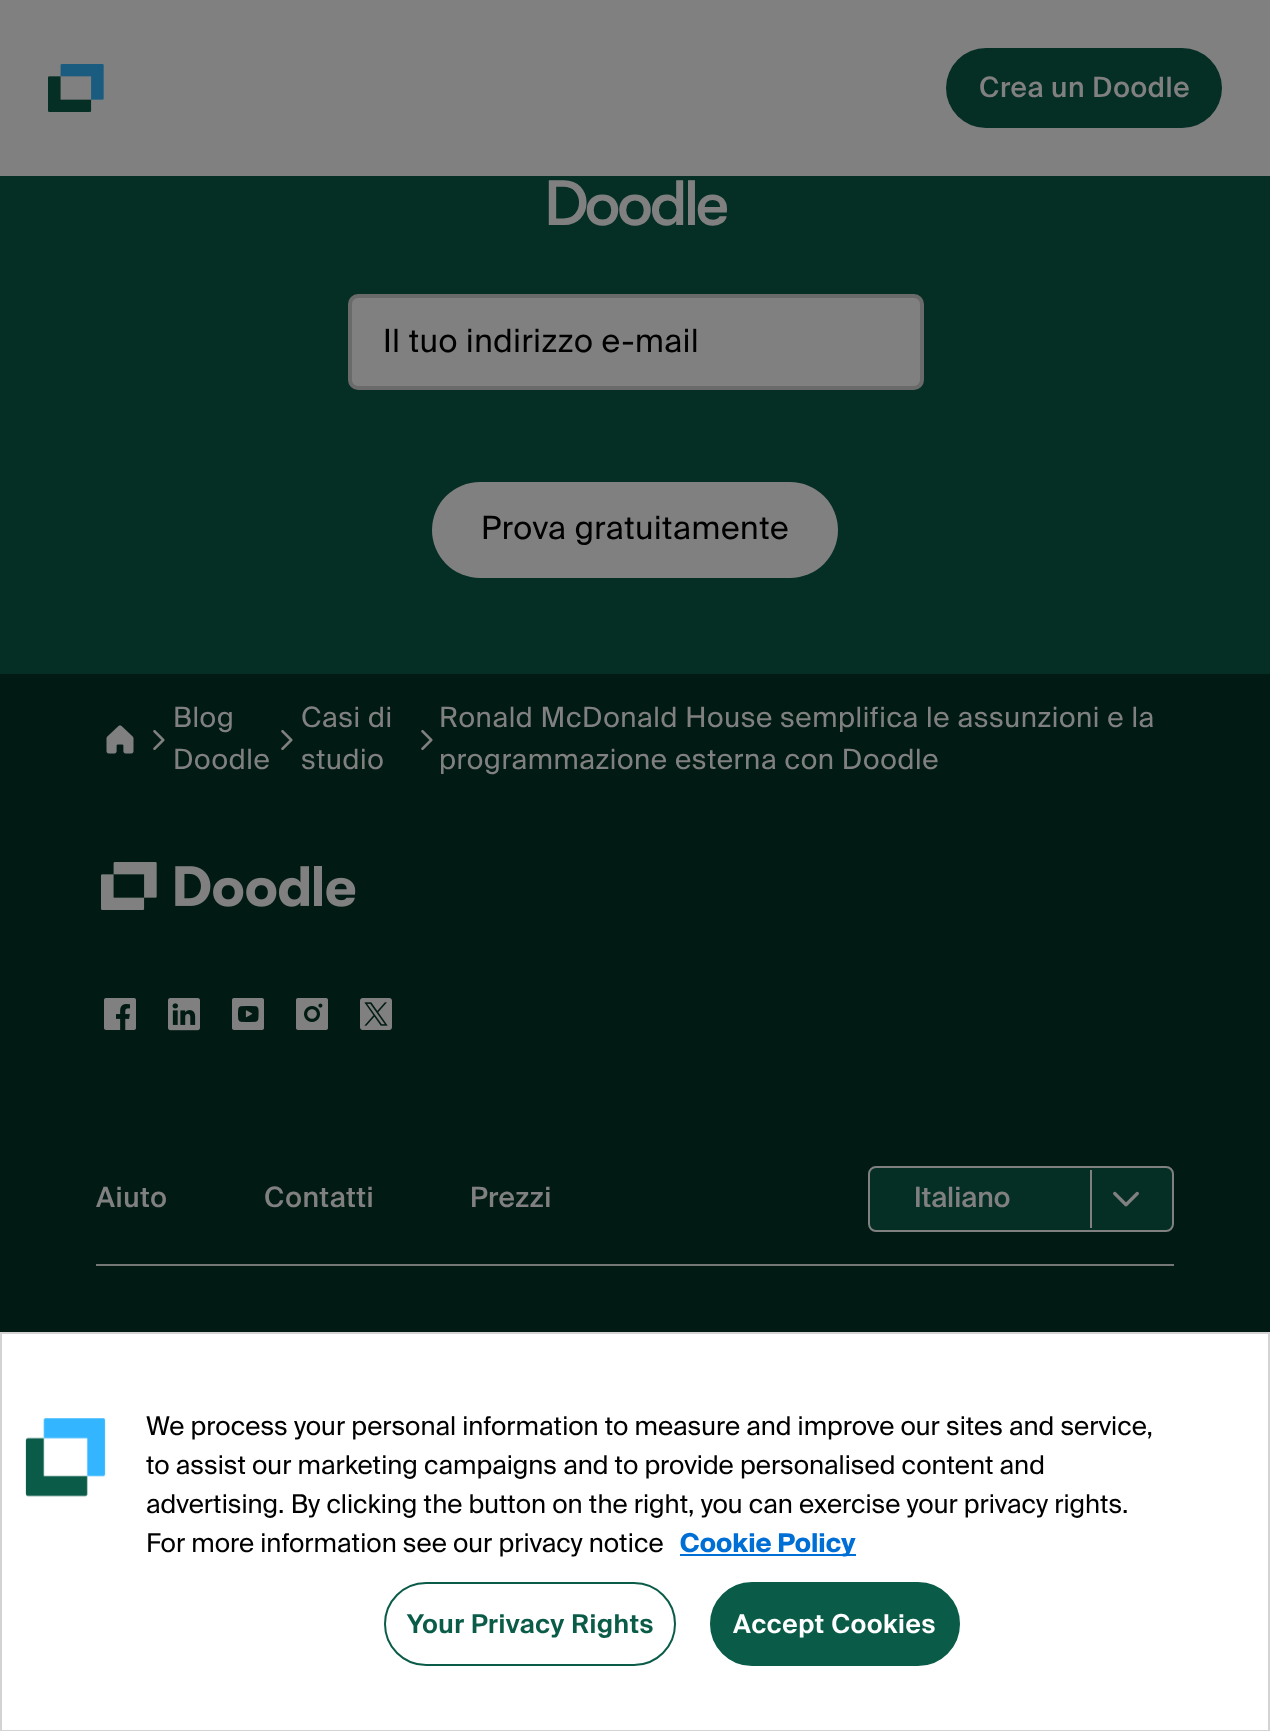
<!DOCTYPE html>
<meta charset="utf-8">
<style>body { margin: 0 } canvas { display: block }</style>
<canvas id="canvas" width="1270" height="1731"></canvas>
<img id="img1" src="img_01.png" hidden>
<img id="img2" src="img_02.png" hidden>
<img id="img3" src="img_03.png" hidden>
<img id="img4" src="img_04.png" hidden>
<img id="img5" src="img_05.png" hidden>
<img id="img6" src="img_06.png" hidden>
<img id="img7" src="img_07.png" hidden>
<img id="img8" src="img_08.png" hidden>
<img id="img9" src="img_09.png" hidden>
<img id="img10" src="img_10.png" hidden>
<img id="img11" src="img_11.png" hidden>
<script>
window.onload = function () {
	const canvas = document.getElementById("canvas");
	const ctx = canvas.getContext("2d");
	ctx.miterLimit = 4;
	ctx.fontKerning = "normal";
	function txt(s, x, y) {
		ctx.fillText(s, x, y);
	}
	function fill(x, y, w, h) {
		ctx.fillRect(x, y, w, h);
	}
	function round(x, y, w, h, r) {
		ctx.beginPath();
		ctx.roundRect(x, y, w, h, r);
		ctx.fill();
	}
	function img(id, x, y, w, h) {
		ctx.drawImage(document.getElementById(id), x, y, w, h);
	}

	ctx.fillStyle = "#052E24";
	fill(0, 0, 1270, 1731);
	ctx.fillStyle = "#808080";
	fill(0, 0, 1270, 176);
	img("img1", 48, 64, 56, 48);
	ctx.fillStyle = "#052E24";
	round(946, 48, 276, 80, 40);
	ctx.fillStyle = "#808080";
	ctx.beginPath();
	ctx.roundRect(350, 296, 572, 92, 8);
	ctx.fill();
	ctx.strokeStyle = "#6A6A6A";
	ctx.lineWidth = 4;
	ctx.stroke();
	round(432, 482, 406, 96, 48);
	ctx.fillStyle = "#011A13";
	fill(0, 674, 1270, 658);
	img("img2", 106, 725, 28, 29);
	img("img3", 153, 729, 12, 21);
	img("img3", 281, 729, 12, 21);
	img("img3", 421, 729, 12, 21);
	img("img4", 101, 862, 255, 48);
	img("img5", 104, 998, 32, 32);
	img("img6", 168, 998, 32, 33);
	img("img7", 232, 998, 32, 32);
	img("img8", 296, 998, 32, 32);
	img("img9", 360, 998, 32, 32);
	ctx.fillStyle = "#052E24";
	ctx.beginPath();
	ctx.roundRect(869, 1167, 304, 64, 7);
	ctx.fill();
	ctx.strokeStyle = "#808080";
	ctx.lineWidth = 2;
	ctx.stroke();
	ctx.fillStyle = "#808080";
	fill(1090, 1170, 2, 58);
	img("img10", 1113, 1191, 26, 16);
	ctx.fillStyle = "#737877";
	fill(96, 1264, 1078, 2);
	ctx.fillStyle = "#FFFFFF";
	ctx.beginPath();
	ctx.rect(1, 1333, 1268, 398);
	ctx.fill();
	ctx.strokeStyle = "#D3D3D3";
	ctx.stroke();
	img("img11", 25, 1418, 81, 79);
	ctx.fillStyle = "#006FD5";
	fill(680, 1554, 176, 2);
	ctx.beginPath();
	ctx.roundRect(385, 1583, 290, 82, 41);
	ctx.strokeStyle = "#0A5C48";
	ctx.stroke();
	ctx.fillStyle = "#0A5C48";
	ctx.beginPath();
	ctx.roundRect(711, 1583, 248, 82, 41);
	ctx.fill();
	ctx.stroke();
	ctx.letterSpacing = "0.6px";
	ctx.font = "500 28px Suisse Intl";
	ctx.fillStyle = "#808080";
	txt("Crea un Doodle", 979, 97);
	ctx.letterSpacing = "-4px";
	ctx.font = "500 64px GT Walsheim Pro";
	txt("Doodle", 544, 225);
	ctx.letterSpacing = "0.6px";
	ctx.font = "32px Suisse Intl";
	ctx.fillStyle = "#000000";
	txt("Il tuo indirizzo e-mail", 383, 352);
	txt("Prova gratuitamente", 481, 539);
	ctx.font = "28px Suisse Intl";
	ctx.fillStyle = "#808080";
	txt("Blog", 173, 727);
	txt("Doodle", 173, 769);
	txt("Casi di", 301, 727);
	txt("studio", 301, 769);
	txt("Ronald McDonald House semplifica le assunzioni e la", 439, 727);
	txt("programmazione esterna con Doodle", 439, 769);
	ctx.font = "500 28px Suisse Intl";
	txt("Aiuto", 96, 1207);
	txt("Contatti", 264, 1207);
	txt("Prezzi", 470, 1207);
	ctx.letterSpacing = "0px";
	txt("Italiano", 914, 1207);
	ctx.font = "26px Suisse Intl";
	ctx.fillStyle = "#000000";
	txt("We process your personal information to measure and improve our sites and service,", 146, 1435);
	txt("to assist our marketing campaigns and to provide personalised content and", 146, 1474);
	txt("advertising. By clicking the button on the right, you can exercise your privacy rights.", 146, 1513);
	txt("For more information see our privacy notice", 146, 1552);
	ctx.font = "bold 26px Suisse Intl";
	ctx.fillStyle = "#006FD5";
	txt("Cookie Policy", 680, 1552);
	ctx.letterSpacing = "0.6px";
	ctx.font = "600 26px Suisse Intl";
	ctx.fillStyle = "#0A5C48";
	txt("Your Privacy Rights", 407, 1633);
	ctx.fillStyle = "#FFFFFF";
	txt("Accept Cookies", 733, 1633);
};
</script>
